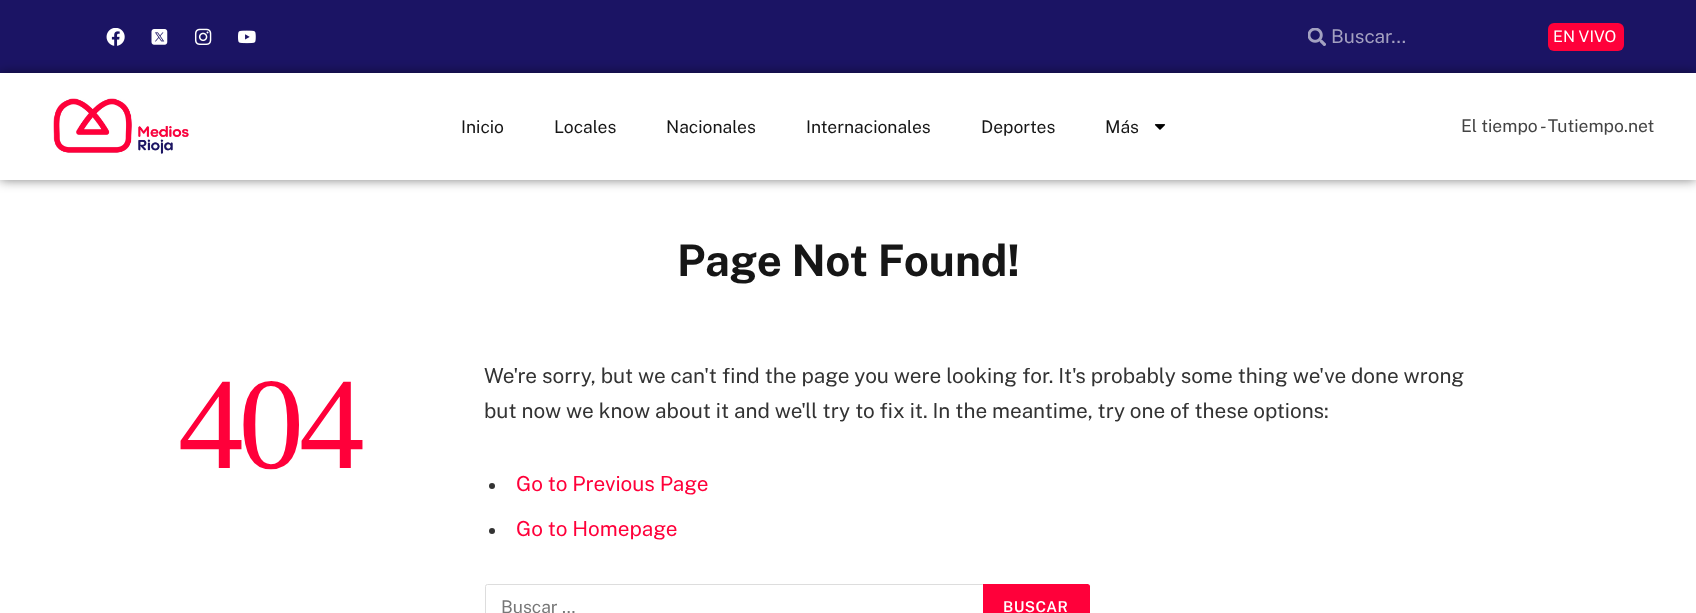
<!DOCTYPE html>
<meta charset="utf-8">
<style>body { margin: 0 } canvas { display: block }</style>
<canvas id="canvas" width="1696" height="613"></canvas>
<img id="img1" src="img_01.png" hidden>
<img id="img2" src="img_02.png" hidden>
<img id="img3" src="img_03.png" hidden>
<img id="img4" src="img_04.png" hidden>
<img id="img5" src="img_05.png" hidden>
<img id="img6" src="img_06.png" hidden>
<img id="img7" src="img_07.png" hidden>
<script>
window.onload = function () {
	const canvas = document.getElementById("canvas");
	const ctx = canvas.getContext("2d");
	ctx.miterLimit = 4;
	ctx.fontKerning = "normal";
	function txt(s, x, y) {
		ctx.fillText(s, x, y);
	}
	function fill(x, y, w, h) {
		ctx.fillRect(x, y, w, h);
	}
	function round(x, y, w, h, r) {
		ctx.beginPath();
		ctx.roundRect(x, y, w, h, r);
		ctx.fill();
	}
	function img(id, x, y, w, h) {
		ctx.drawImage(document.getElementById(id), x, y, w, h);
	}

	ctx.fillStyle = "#FFFFFF";
	fill(0, 0, 1696, 613);
	ctx.fillStyle = "#1B1464";
	fill(0, 0, 1696, 73);
	img("img1", 106, 28, 19, 18);
	img("img2", 151, 29, 17, 16);
	img("img3", 194, 28, 18, 17);
	img("img4", 238, 30, 18, 14);
	img("img5", 1308, 28, 18, 18);
	ctx.fillStyle = "#FF003A";
	round(1548, 23, 76, 28, 6);
	ctx.save();
	ctx.beginPath();
	ctx.moveTo(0, 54);
	ctx.lineTo(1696, 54);
	ctx.lineTo(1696, 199);
	ctx.lineTo(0, 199);
	ctx.closePath();
	ctx.moveTo(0, 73);
	ctx.lineTo(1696, 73);
	ctx.lineTo(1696, 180);
	ctx.lineTo(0, 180);
	ctx.closePath();
	ctx.clip("evenodd");
	ctx.fillStyle = "rgba(0, 0, 0, 0.5)";
	ctx.filter = "blur(6px)";
	ctx.beginPath();
	ctx.rect(0, 73, 1696, 107);
	ctx.fill();
	ctx.filter = "none";
	ctx.restore();
	img("img6", 53, 98, 136, 56);
	img("img7", 1154, 124, 12, 6);
	ctx.fillStyle = "#333333";
	ctx.beginPath();
	ctx.arc(492, 486, 3, 0, Math.PI * 2);
	ctx.fill();
	ctx.beginPath();
	ctx.arc(492, 531, 3, 0, Math.PI * 2);
	ctx.fill();
	ctx.beginPath();
	ctx.roundRect(485.5, 584.5, 499, 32, 2);
	ctx.strokeStyle = "#DDDDDD";
	ctx.stroke();
	ctx.fillStyle = "#FF003A";
	ctx.beginPath();
	ctx.moveTo(983, 584);
	ctx.lineTo(1087.5, 584);
	ctx.bezierCurveTo(1089, 584, 1090, 585, 1090, 586.5);
	ctx.lineTo(1090, 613.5);
	ctx.bezierCurveTo(1090, 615, 1089, 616, 1087.5, 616);
	ctx.lineTo(983, 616);
	ctx.closePath();
	ctx.fill();
	ctx.font = "19px Public Sans";
	ctx.fillStyle = "#A4A1C1";
	txt("Buscar...", 1331, 43);
	ctx.font = "16px Public Sans";
	ctx.fillStyle = "#FFFFFF";
	txt("EN VIVO", 1553, 42);
	ctx.font = "17.5px Public Sans";
	ctx.fillStyle = "#161616";
	txt("Inicio", 461, 133);
	txt("Locales", 554, 133);
	txt("Nacionales", 666, 133);
	txt("Internacionales", 806, 133);
	txt("Deportes", 981, 133);
	txt("Más", 1105, 133);
	ctx.fillStyle = "#444444";
	txt("El tiempo - Tutiempo.net", 1461, 132);
	ctx.font = "bold 43.75px Public Sans";
	ctx.fillStyle = "#161616";
	txt("Page Not Found!", 677, 276);
	ctx.letterSpacing = "-5px";
	ctx.font = "131px Liberation Serif";
	ctx.fillStyle = "#FF003A";
	txt("404", 178, 468);
	ctx.letterSpacing = "0px";
	ctx.font = "20.75px Public Sans";
	ctx.fillStyle = "#333333";
	txt("We're sorry, but we can't find the page you were looking for. It's probably some thing we've done wrong", 484, 383);
	txt("but now we know about it and we'll try to fix it. In the meantime, try one of these options:", 484, 418);
	ctx.fillStyle = "#FF003A";
	txt("Go to Previous Page", 516, 491);
	txt("Go to Homepage", 516, 536);
	ctx.font = "17.5px Public Sans";
	ctx.fillStyle = "#777777";
	txt("Buscar …", 501, 613);
	ctx.letterSpacing = "0.5px";
	ctx.font = "600 15px Public Sans";
	ctx.fillStyle = "#FFFFFF";
	txt("BUSCAR", 1003, 612);
};
</script>
